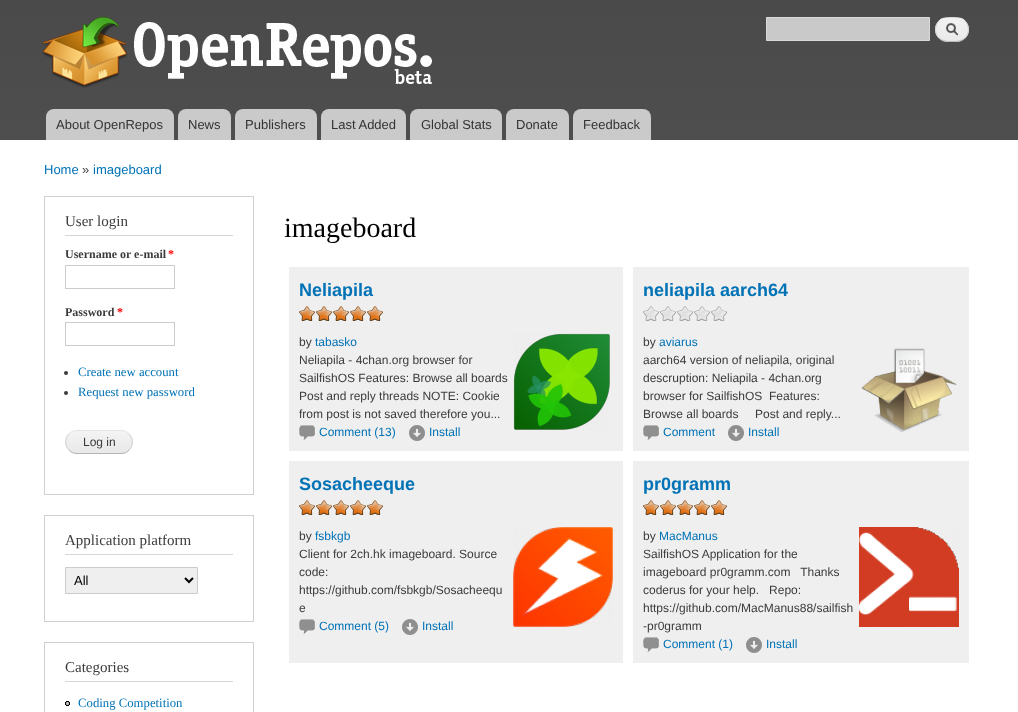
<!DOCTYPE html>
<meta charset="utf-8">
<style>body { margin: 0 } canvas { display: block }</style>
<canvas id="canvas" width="1018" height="712"></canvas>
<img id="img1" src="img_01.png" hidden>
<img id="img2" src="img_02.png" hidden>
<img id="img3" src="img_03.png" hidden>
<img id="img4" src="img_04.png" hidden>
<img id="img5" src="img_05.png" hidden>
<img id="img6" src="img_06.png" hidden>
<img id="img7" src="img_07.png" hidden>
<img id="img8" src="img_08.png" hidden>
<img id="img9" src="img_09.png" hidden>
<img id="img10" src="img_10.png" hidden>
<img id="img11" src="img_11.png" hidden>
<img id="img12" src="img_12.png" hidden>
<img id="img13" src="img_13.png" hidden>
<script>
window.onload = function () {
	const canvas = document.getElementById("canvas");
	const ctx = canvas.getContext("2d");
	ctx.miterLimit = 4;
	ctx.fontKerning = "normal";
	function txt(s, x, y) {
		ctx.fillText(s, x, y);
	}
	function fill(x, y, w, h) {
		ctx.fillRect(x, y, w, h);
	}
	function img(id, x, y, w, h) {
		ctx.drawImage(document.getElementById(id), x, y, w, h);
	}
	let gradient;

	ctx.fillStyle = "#FFFFFF";
	fill(0, 0, 1018, 712);
	gradient = ctx.createLinearGradient(509, 0, 509, 140);
	gradient.addColorStop(0, "#4A4A4A");
	gradient.addColorStop(1, "#4E4E4E");
	ctx.fillStyle = gradient;
	fill(0, 0, 1018, 140);
	img("img1", 42, 16, 390, 72);
	ctx.fillStyle = "#C9C9C9";
	ctx.beginPath();
	ctx.rect(766.5, 17.5, 163, 23);
	ctx.fill();
	ctx.strokeStyle = "#D9D9D9";
	ctx.stroke();
	img("img2", 935, 18, 34, 24);
	ctx.beginPath();
	ctx.moveTo(939, 21);
	ctx.bezierCurveTo(942.5, 17.5, 947, 17.5, 952, 17.5);
	ctx.bezierCurveTo(957, 17.5, 961.5, 17.5, 965, 21);
	ctx.strokeStyle = "#E4E4E4";
	ctx.stroke();
	ctx.beginPath();
	ctx.moveTo(965, 21);
	ctx.bezierCurveTo(969.5, 25.5, 969.5, 33.5, 965, 38);
	ctx.strokeStyle = "#D2D2D2";
	ctx.stroke();
	ctx.beginPath();
	ctx.moveTo(965, 38);
	ctx.bezierCurveTo(961.5, 41.5, 957, 41.5, 952, 41.5);
	ctx.bezierCurveTo(947, 41.5, 942.5, 41.5, 939, 38);
	ctx.strokeStyle = "#B4B4B4";
	ctx.stroke();
	ctx.beginPath();
	ctx.moveTo(939, 38);
	ctx.bezierCurveTo(934.5, 33.5, 934.5, 25.5, 939, 21);
	ctx.strokeStyle = "#D2D2D2";
	ctx.stroke();
	ctx.fillStyle = "#CACACA";
	ctx.beginPath();
	ctx.roundRect(46, 109, 128, 31, [8, 8, 0, 0]);
	ctx.fill();
	ctx.beginPath();
	ctx.roundRect(178, 109, 53, 31, [8, 8, 0, 0]);
	ctx.fill();
	ctx.beginPath();
	ctx.roundRect(235, 109, 82, 31, [8, 8, 0, 0]);
	ctx.fill();
	ctx.beginPath();
	ctx.roundRect(321, 109, 85, 31, [8, 8, 0, 0]);
	ctx.fill();
	ctx.beginPath();
	ctx.roundRect(410, 109, 92, 31, [8, 8, 0, 0]);
	ctx.fill();
	ctx.beginPath();
	ctx.roundRect(506, 109, 63, 31, [8, 8, 0, 0]);
	ctx.fill();
	ctx.beginPath();
	ctx.roundRect(573, 109, 78, 31, [8, 8, 0, 0]);
	ctx.fill();
	ctx.strokeStyle = "#D0D0D0";
	ctx.strokeRect(44.5, 196.5, 209, 298);
	ctx.fillStyle = "#D6D6D6";
	fill(65, 235, 168, 1);
	ctx.strokeStyle = "#CCCCCC";
	ctx.strokeRect(65.5, 265.5, 109, 23);
	ctx.strokeRect(65.5, 322.5, 109, 23);
	ctx.fillStyle = "#3B3B3B";
	ctx.beginPath();
	ctx.arc(66, 373, 2, 0, Math.PI * 2);
	ctx.fill();
	ctx.beginPath();
	ctx.arc(66, 393, 2, 0, Math.PI * 2);
	ctx.fill();
	img("img3", 65, 431, 68, 23);
	ctx.beginPath();
	ctx.moveTo(69, 434);
	ctx.bezierCurveTo(71, 431.5, 74, 430.5, 77, 430.5);
	ctx.lineTo(121, 430.5);
	ctx.bezierCurveTo(124, 430.5, 127, 431.5, 129, 434);
	ctx.strokeStyle = "#E4E4E4";
	ctx.stroke();
	ctx.beginPath();
	ctx.moveTo(129, 434);
	ctx.bezierCurveTo(133.5, 438.5, 133.5, 445.5, 129, 450);
	ctx.strokeStyle = "#D2D2D2";
	ctx.stroke();
	ctx.beginPath();
	ctx.moveTo(129, 450);
	ctx.bezierCurveTo(127, 452.5, 124, 453.5, 121, 453.5);
	ctx.lineTo(77, 453.5);
	ctx.bezierCurveTo(74, 453.5, 71, 452.5, 69, 450);
	ctx.strokeStyle = "#B4B4B4";
	ctx.stroke();
	ctx.beginPath();
	ctx.moveTo(69, 450);
	ctx.bezierCurveTo(64.5, 445.5, 64.5, 438.5, 69, 434);
	ctx.strokeStyle = "#D2D2D2";
	ctx.stroke();
	ctx.strokeStyle = "#D0D0D0";
	ctx.strokeRect(44.5, 515.5, 209, 106);
	ctx.fillStyle = "#D6D6D6";
	fill(65, 554, 168, 1);
	ctx.fillStyle = "#EFEFEF";
	ctx.beginPath();
	ctx.rect(65.5, 567.5, 132, 26);
	ctx.fill();
	ctx.strokeStyle = "#CCCCCC";
	ctx.stroke();
	ctx.beginPath();
	ctx.moveTo(185, 578);
	ctx.lineTo(189, 582);
	ctx.lineTo(193, 578);
	ctx.strokeStyle = "#000000";
	ctx.lineWidth = 2;
	ctx.stroke();
	ctx.strokeStyle = "#D0D0D0";
	ctx.lineWidth = 1;
	ctx.strokeRect(44.5, 642.5, 209, 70);
	ctx.fillStyle = "#D6D6D6";
	fill(65, 681, 168, 1);
	img("img4", 65, 701, 5, 5);
	ctx.fillStyle = "#EFEFEF";
	fill(289, 267, 680, 184);
	ctx.strokeStyle = "#FFFFFF";
	ctx.lineWidth = 5;
	ctx.strokeRect(286.5, 264.5, 339, 189);
	img("img5", 299, 306, 16, 15);
	img("img6", 299, 306, 16, 15);
	img("img5", 316, 306, 16, 15);
	img("img6", 316, 306, 16, 15);
	img("img5", 333, 306, 16, 15);
	img("img6", 333, 306, 16, 15);
	img("img5", 350, 306, 16, 15);
	img("img6", 350, 306, 16, 15);
	img("img5", 367, 306, 16, 15);
	img("img6", 367, 306, 16, 15);
	img("img7", 513, 333, 97, 97);
	img("img8", 299, 425, 16, 16);
	img("img9", 409, 425, 16, 16);
	ctx.strokeRect(630.5, 264.5, 341, 189);
	img("img5", 643, 306, 16, 15);
	img("img10", 643, 306, 16, 15);
	img("img5", 660, 306, 16, 15);
	img("img10", 660, 306, 16, 15);
	img("img5", 677, 306, 16, 15);
	img("img10", 677, 306, 16, 15);
	img("img5", 694, 306, 16, 15);
	img("img10", 694, 306, 16, 15);
	img("img5", 711, 306, 16, 15);
	img("img10", 711, 306, 16, 15);
	img("img11", 861, 348, 96, 85);
	img("img8", 643, 425, 16, 16);
	img("img9", 728, 425, 16, 16);
	fill(289, 461, 680, 202);
	ctx.strokeRect(286.5, 458.5, 339, 207);
	img("img5", 299, 500, 16, 15);
	img("img6", 299, 500, 16, 15);
	img("img5", 316, 500, 16, 15);
	img("img6", 316, 500, 16, 15);
	img("img5", 333, 500, 16, 15);
	img("img6", 333, 500, 16, 15);
	img("img5", 350, 500, 16, 15);
	img("img6", 350, 500, 16, 15);
	img("img5", 367, 500, 16, 15);
	img("img6", 367, 500, 16, 15);
	img("img12", 513, 527, 100, 100);
	img("img8", 299, 619, 16, 16);
	img("img9", 402, 619, 16, 16);
	ctx.strokeRect(630.5, 458.5, 341, 207);
	img("img5", 643, 500, 16, 15);
	img("img6", 643, 500, 16, 15);
	img("img5", 660, 500, 16, 15);
	img("img6", 660, 500, 16, 15);
	img("img5", 677, 500, 16, 15);
	img("img6", 677, 500, 16, 15);
	img("img5", 694, 500, 16, 15);
	img("img6", 694, 500, 16, 15);
	img("img5", 711, 500, 16, 15);
	img("img6", 711, 500, 16, 15);
	img("img13", 859, 527, 100, 100);
	img("img8", 643, 637, 16, 16);
	img("img9", 746, 637, 16, 16);
	ctx.font = "13px Liberation Sans";
	ctx.fillStyle = "#333333";
	txt("About OpenRepos", 56, 129);
	txt("News", 188, 129);
	txt("Publishers", 245, 129);
	txt("Last Added", 331, 129);
	txt("Global Stats", 421, 129);
	txt("Donate", 516, 129);
	txt("Feedback", 583, 129);
	ctx.fillStyle = "#0072B6";
	txt("Home", 44, 174);
	ctx.fillStyle = "#3B3B3B";
	txt("»", 82, 174);
	ctx.fillStyle = "#0072B6";
	txt("imageboard", 93, 174);
	ctx.font = "15px Liberation Serif";
	ctx.fillStyle = "#3B3B3B";
	txt("User login", 65, 226);
	ctx.font = "bold 12px Liberation Serif";
	txt("Username or e-mail", 65, 258);
	ctx.fillStyle = "#FF0000";
	txt("*", 168, 258);
	ctx.fillStyle = "#3B3B3B";
	txt("Password", 65, 316);
	ctx.fillStyle = "#FF0000";
	txt("*", 117, 316);
	ctx.font = "12.75px Liberation Serif";
	ctx.fillStyle = "#0072B6";
	txt("Create new account", 78, 376);
	txt("Request new password", 78, 396);
	ctx.font = "12px Liberation Sans";
	ctx.fillStyle = "#3B3B3B";
	txt("Log in", 83, 446);
	ctx.font = "15px Liberation Serif";
	txt("Application platform", 65, 545);
	ctx.font = "13px Liberation Sans";
	ctx.fillStyle = "#000000";
	txt("All", 74, 585);
	ctx.font = "15px Liberation Serif";
	ctx.fillStyle = "#3B3B3B";
	txt("Categories", 65, 672);
	ctx.font = "12.75px Liberation Serif";
	ctx.fillStyle = "#0072B6";
	txt("Coding Competition", 78, 707);
	ctx.font = "28px Liberation Serif";
	ctx.fillStyle = "#000000";
	txt("imageboard", 284, 237);
	ctx.font = "bold 18px Liberation Sans";
	ctx.fillStyle = "#0072B6";
	txt("Neliapila", 299, 296);
	ctx.font = "12px Liberation Sans";
	ctx.fillStyle = "#3B3B3B";
	txt("by", 299, 346);
	ctx.fillStyle = "#0072B6";
	txt("tabasko", 315, 346);
	ctx.fillStyle = "#3B3B3B";
	txt("Neliapila - 4chan.org browser for", 299, 364);
	txt("SailfishOS Features: Browse all boards", 299, 382);
	txt("Post and reply threads NOTE: Cookie", 299, 400);
	txt("from post is not saved therefore you...", 299, 418);
	ctx.fillStyle = "#0072B6";
	txt("Comment (13)", 319, 436);
	txt("Install", 429, 436);
	ctx.font = "bold 18px Liberation Sans";
	txt("neliapila aarch64", 643, 296);
	ctx.font = "12px Liberation Sans";
	ctx.fillStyle = "#3B3B3B";
	txt("by", 643, 346);
	ctx.fillStyle = "#0072B6";
	txt("aviarus", 659, 346);
	ctx.fillStyle = "#3B3B3B";
	txt("aarch64 version of neliapila, original", 643, 364);
	txt("descruption: Neliapila - 4chan.org", 643, 382);
	txt("browser for SailfishOS  Features:", 643, 400);
	txt("Browse all boards     Post and reply...", 643, 418);
	ctx.fillStyle = "#0072B6";
	txt("Comment", 663, 436);
	txt("Install", 748, 436);
	ctx.font = "bold 18px Liberation Sans";
	txt("Sosacheeque", 299, 490);
	ctx.font = "12px Liberation Sans";
	ctx.fillStyle = "#3B3B3B";
	txt("by", 299, 540);
	ctx.fillStyle = "#0072B6";
	txt("fsbkgb", 315, 540);
	ctx.fillStyle = "#3B3B3B";
	txt("Client for 2ch.hk imageboard. Source", 299, 558);
	txt("code:", 299, 576);
	txt("https://github.com/fsbkgb/Sosacheequ", 299, 594);
	txt("e", 299, 612);
	ctx.fillStyle = "#0072B6";
	txt("Comment (5)", 319, 630);
	txt("Install", 422, 630);
	ctx.font = "bold 18px Liberation Sans";
	txt("pr0gramm", 643, 490);
	ctx.font = "12px Liberation Sans";
	ctx.fillStyle = "#3B3B3B";
	txt("by", 643, 540);
	ctx.fillStyle = "#0072B6";
	txt("MacManus", 659, 540);
	ctx.fillStyle = "#3B3B3B";
	txt("SailfishOS Application for the", 643, 558);
	txt("imageboard pr0gramm.com   Thanks", 643, 576);
	txt("coderus for your help.   Repo:", 643, 594);
	txt("https://github.com/MacManus88/sailfish", 643, 612);
	txt("-pr0gramm", 643, 630);
	ctx.fillStyle = "#0072B6";
	txt("Comment (1)", 663, 648);
	txt("Install", 766, 648);
};
</script>
